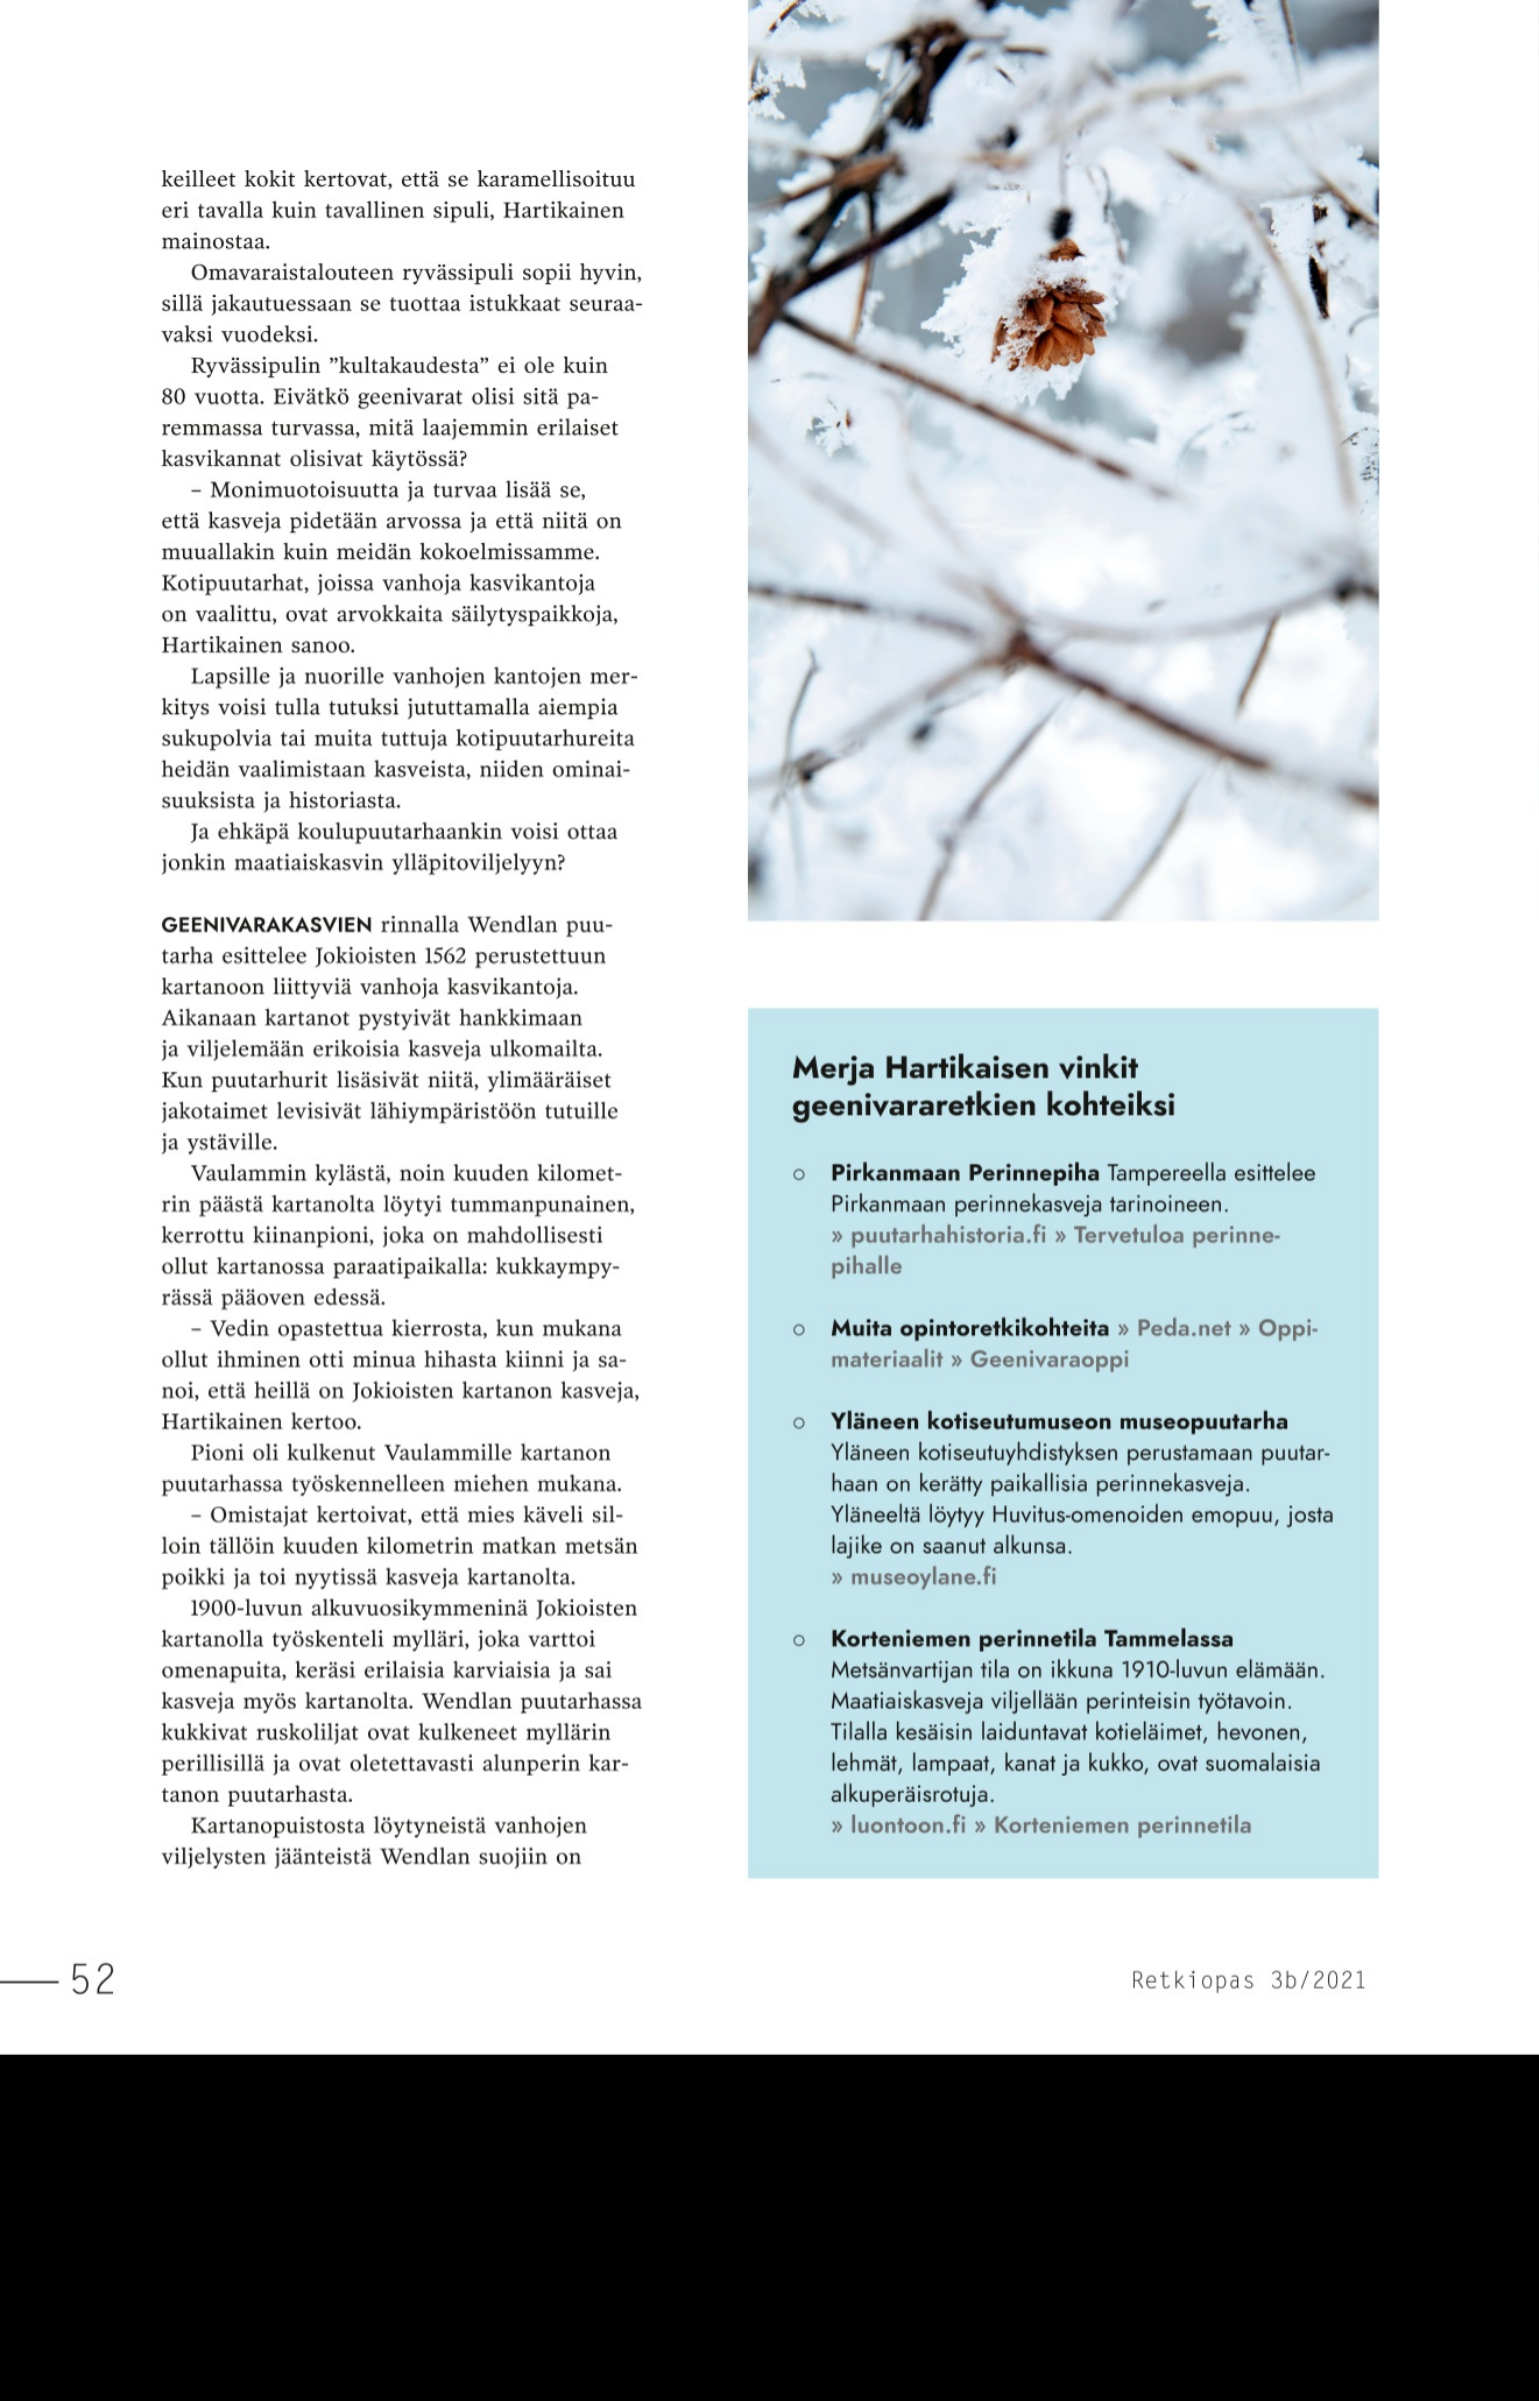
<!DOCTYPE html>
<meta charset="utf-8">
<style>body { margin: 0 } canvas { display: block }</style>
<canvas id="canvas" width="1539" height="2401"></canvas>
<img id="img1" src="img_01.png" hidden>
<script>
window.onload = function () {
	const canvas = document.getElementById("canvas");
	const ctx = canvas.getContext("2d");
	ctx.miterLimit = 4;
	ctx.fontKerning = "normal";
	function fill(x, y, w, h) {
		ctx.fillRect(x, y, w, h);
	}
	function img(id, x, y, w, h) {
		ctx.drawImage(document.getElementById(id), x, y, w, h);
	}

	ctx.fillStyle = "#000000";
	fill(0, 0, 1539, 2401);
	img("img1", 0, 0, 1539, 2055);
};
</script>
